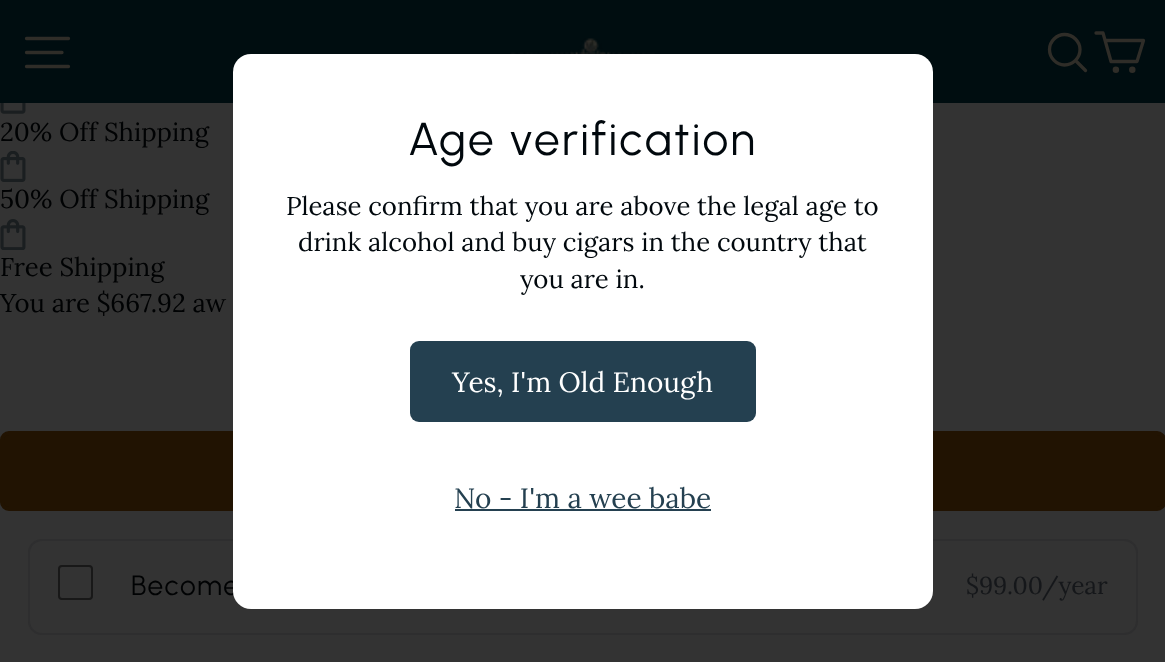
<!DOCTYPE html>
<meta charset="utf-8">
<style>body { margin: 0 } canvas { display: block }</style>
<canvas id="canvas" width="1165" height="662"></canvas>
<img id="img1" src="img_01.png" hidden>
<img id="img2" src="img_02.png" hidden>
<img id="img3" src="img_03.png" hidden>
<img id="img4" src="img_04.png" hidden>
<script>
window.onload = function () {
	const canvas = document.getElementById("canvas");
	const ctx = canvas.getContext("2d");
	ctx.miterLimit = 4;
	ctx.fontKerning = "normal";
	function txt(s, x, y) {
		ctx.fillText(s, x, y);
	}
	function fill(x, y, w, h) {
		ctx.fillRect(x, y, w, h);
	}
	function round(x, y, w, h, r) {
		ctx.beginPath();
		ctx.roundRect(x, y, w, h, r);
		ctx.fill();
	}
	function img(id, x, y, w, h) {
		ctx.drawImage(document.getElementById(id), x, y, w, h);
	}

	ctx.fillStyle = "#333333";
	fill(0, 0, 1165, 662);
	ctx.fillStyle = "#000D10";
	fill(0, 0, 1165, 103);
	ctx.beginPath();
	ctx.moveTo(26.5, 38.5);
	ctx.lineTo(68.5, 38.5);
	ctx.moveTo(26.5, 52.5);
	ctx.lineTo(62, 52.5);
	ctx.moveTo(26.5, 66.5);
	ctx.lineTo(68.5, 66.5);
	ctx.strokeStyle = "#2F2D28";
	ctx.lineWidth = 3.3;
	ctx.lineCap = "round";
	ctx.lineJoin = "round";
	ctx.stroke();
	img("img1", 510, 38, 145, 16);
	ctx.beginPath();
	ctx.moveTo(1080, 49.5);
	ctx.bezierCurveTo(1080, 58, 1073, 65, 1064.5, 65);
	ctx.bezierCurveTo(1056.5, 65, 1049.5, 58, 1049.5, 49.5);
	ctx.bezierCurveTo(1049.5, 41.5, 1056.5, 34.5, 1064.5, 34.5);
	ctx.bezierCurveTo(1073, 34.5, 1080, 41.5, 1080, 49.5);
	ctx.closePath();
	ctx.moveTo(1085.5, 70.5);
	ctx.lineTo(1075.5, 60.5);
	ctx.stroke();
	ctx.beginPath();
	ctx.moveTo(1105, 40.5);
	ctx.lineTo(1143.5, 40.5);
	ctx.lineTo(1137, 61.5);
	ctx.lineTo(1111, 61.5);
	ctx.lineTo(1103, 33);
	ctx.lineTo(1096, 33);
	ctx.stroke();
	ctx.beginPath();
	ctx.arc(1115.9, 69.7, 1.6, 0, Math.PI * 2);
	ctx.stroke();
	ctx.beginPath();
	ctx.arc(1132.3, 69.7, 1.6, 0, Math.PI * 2);
	ctx.stroke();
	img("img2", 0, 103, 26, 11);
	img("img3", 0, 151, 26, 31);
	img("img4", 0, 219, 26, 31);
	ctx.fillStyle = "#211302";
	ctx.beginPath();
	ctx.roundRect(2, 433, 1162, 76, 7);
	ctx.fill();
	ctx.strokeStyle = "#211302";
	ctx.lineWidth = 4;
	ctx.lineJoin = "miter";
	ctx.stroke();
	ctx.beginPath();
	ctx.roundRect(29, 540, 1108, 94, 13);
	ctx.strokeStyle = "#2E2E2F";
	ctx.lineWidth = 2;
	ctx.stroke();
	ctx.beginPath();
	ctx.roundRect(59, 566, 33, 33, 3);
	ctx.strokeStyle = "#181818";
	ctx.stroke();
	ctx.font = "25.75px Lora";
	ctx.fillStyle = "#000203";
	txt("20% Off Shipping", 0, 141);
	txt("50% Off Shipping", 0, 208);
	txt("Free Shipping", 0, 276);
	txt("You are $667.92 aw", 0, 312);
	ctx.letterSpacing = "1.5px";
	ctx.font = "28px Urbanist";
	txt("Become", 131, 595);
	ctx.fillStyle = "#FFFFFF";
	round(233, 54, 700, 555, 18);
	ctx.letterSpacing = "0px";
	ctx.font = "28px Lora";
	ctx.fillStyle = "#244050";
	txt("No - I'm a wee babe", 454, 508);
	fill(455, 509, 256, 2);
	round(410, 341, 346, 81, 9);
	ctx.fillStyle = "#FFFFFF";
	txt("Yes, I'm Old Enough", 452, 392);
	ctx.font = "25.75px Lora";
	ctx.fillStyle = "#01080D";
	txt("you are in.", 520, 288);
	txt("drink alcohol and buy cigars in the country that", 298, 251);
	txt("Please confirm that you are above the legal age to", 286, 215);
	ctx.letterSpacing = "2.25px";
	ctx.font = "46px Urbanist";
	txt("Age verification", 408, 155);
	ctx.letterSpacing = "0px";
	ctx.font = "24.5px Lora";
	ctx.fillStyle = "#15171A";
	txt("$99.00/year", 966, 594);
};
</script>
